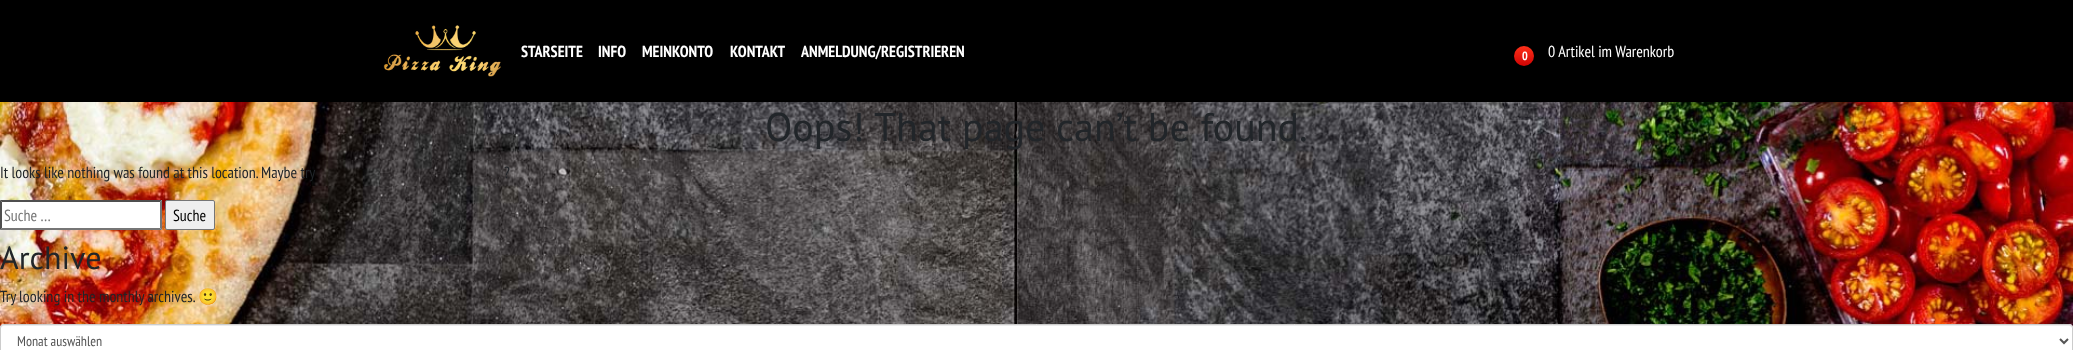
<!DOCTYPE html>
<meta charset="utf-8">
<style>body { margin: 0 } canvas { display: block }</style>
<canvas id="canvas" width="2073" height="350"></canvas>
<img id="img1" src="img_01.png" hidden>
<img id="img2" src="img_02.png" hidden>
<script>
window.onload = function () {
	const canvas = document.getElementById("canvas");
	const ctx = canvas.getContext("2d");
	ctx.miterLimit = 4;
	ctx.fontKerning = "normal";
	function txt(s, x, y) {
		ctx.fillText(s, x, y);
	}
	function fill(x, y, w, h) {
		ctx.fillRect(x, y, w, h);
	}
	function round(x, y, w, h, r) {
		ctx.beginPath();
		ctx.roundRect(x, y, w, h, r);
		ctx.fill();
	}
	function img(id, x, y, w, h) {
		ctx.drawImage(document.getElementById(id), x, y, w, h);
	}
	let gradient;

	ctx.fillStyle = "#FFFFFF";
	fill(0, 0, 2073, 350);
	img("img1", 0, 102, 2073, 226);
	ctx.fillStyle = "#000000";
	fill(0, 0, 2073, 102);
	img("img2", 383, 25, 118, 52);
	gradient = ctx.createLinearGradient(1524, 46, 1524, 66);
	gradient.addColorStop(0, "#FF3019");
	gradient.addColorStop(1, "#CF0404");
	ctx.fillStyle = gradient;
	ctx.beginPath();
	ctx.arc(1524, 56, 10, 0, Math.PI * 2);
	ctx.fill();
	ctx.fillStyle = "#FFFFFF";
	fill(0, 200, 162, 30);
	ctx.fillStyle = "#4F4F4F";
	ctx.beginPath();
	ctx.moveTo(0, 200);
	ctx.lineTo(162, 200);
	ctx.lineTo(160, 202);
	ctx.lineTo(2, 202);
	ctx.closePath();
	ctx.fill();
	ctx.fillStyle = "#767676";
	ctx.beginPath();
	ctx.moveTo(162, 200);
	ctx.lineTo(162, 230);
	ctx.lineTo(160, 228);
	ctx.lineTo(160, 202);
	ctx.closePath();
	ctx.fill();
	ctx.beginPath();
	ctx.moveTo(162, 230);
	ctx.lineTo(0, 230);
	ctx.lineTo(2, 228);
	ctx.lineTo(160, 228);
	ctx.closePath();
	ctx.fill();
	ctx.fillStyle = "#4F4F4F";
	ctx.beginPath();
	ctx.moveTo(0, 230);
	ctx.lineTo(0, 200);
	ctx.lineTo(2, 202);
	ctx.lineTo(2, 228);
	ctx.closePath();
	ctx.fill();
	ctx.fillStyle = "#EFEFEF";
	ctx.beginPath();
	ctx.roundRect(165.5, 200.5, 49, 29, 1.5);
	ctx.fill();
	ctx.strokeStyle = "#767676";
	ctx.stroke();
	ctx.fillStyle = "#FFFFFF";
	round(0, 324, 2073, 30, 4);
	ctx.fillStyle = "#ECECEC";
	ctx.beginPath();
	ctx.moveTo(4, 326);
	ctx.lineTo(2069, 326);
	ctx.bezierCurveTo(2071, 326, 2072, 327, 2072, 329);
	ctx.bezierCurveTo(2072, 327, 2071, 325, 2069, 325);
	ctx.lineTo(4, 325);
	ctx.bezierCurveTo(2, 325, 1, 327, 1, 329);
	ctx.bezierCurveTo(1, 327, 2, 326, 4, 326);
	ctx.closePath();
	ctx.fill();
	ctx.beginPath();
	ctx.roundRect(0.5, 324.5, 2072, 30, 3.5);
	ctx.strokeStyle = "#CCCCCC";
	ctx.stroke();
	ctx.beginPath();
	ctx.moveTo(2060, 339);
	ctx.lineTo(2064, 343);
	ctx.lineTo(2068, 339);
	ctx.strokeStyle = "#555555";
	ctx.lineWidth = 2;
	ctx.stroke();
	ctx.font = "bold 16px PT Sans Narrow";
	ctx.fillStyle = "#FFFFFF";
	txt("STARSEITE", 521, 57);
	txt("INFO", 598, 57);
	txt("MEINKONTO", 642, 57);
	txt("KONTAKT", 730, 57);
	txt("ANMELDUNG/REGISTRIEREN", 801, 57);
	ctx.font = "bold 12px PT Sans Narrow";
	txt("0", 1522, 60);
	ctx.font = "16px PT Sans Narrow";
	txt("0 Artikel im Warenkorb", 1548, 57);
	ctx.font = "40px PT Sans";
	ctx.fillStyle = "#212529";
	txt("Oops! That page can’t be found.", 765, 141);
	ctx.font = "16px PT Sans Narrow";
	txt("It looks like nothing was found at this location. Maybe try", 0, 178);
	txt("?", 504, 178);
	ctx.fillStyle = "#757575";
	txt("Suche …", 4, 221);
	ctx.fillStyle = "#000000";
	txt("Suche", 173, 221);
	ctx.font = "32px PT Sans";
	ctx.fillStyle = "#212529";
	txt("Archive", 0, 269);
	ctx.font = "16px PT Sans Narrow";
	txt("Try looking in the monthly archives.", 0, 302);
	ctx.font = "16px Noto Color Emoji";
	txt("🙂", 198, 302);
	ctx.font = "14px PT Sans Narrow";
	ctx.fillStyle = "#555555";
	txt("Monat auswählen", 17, 346);
};
</script>
